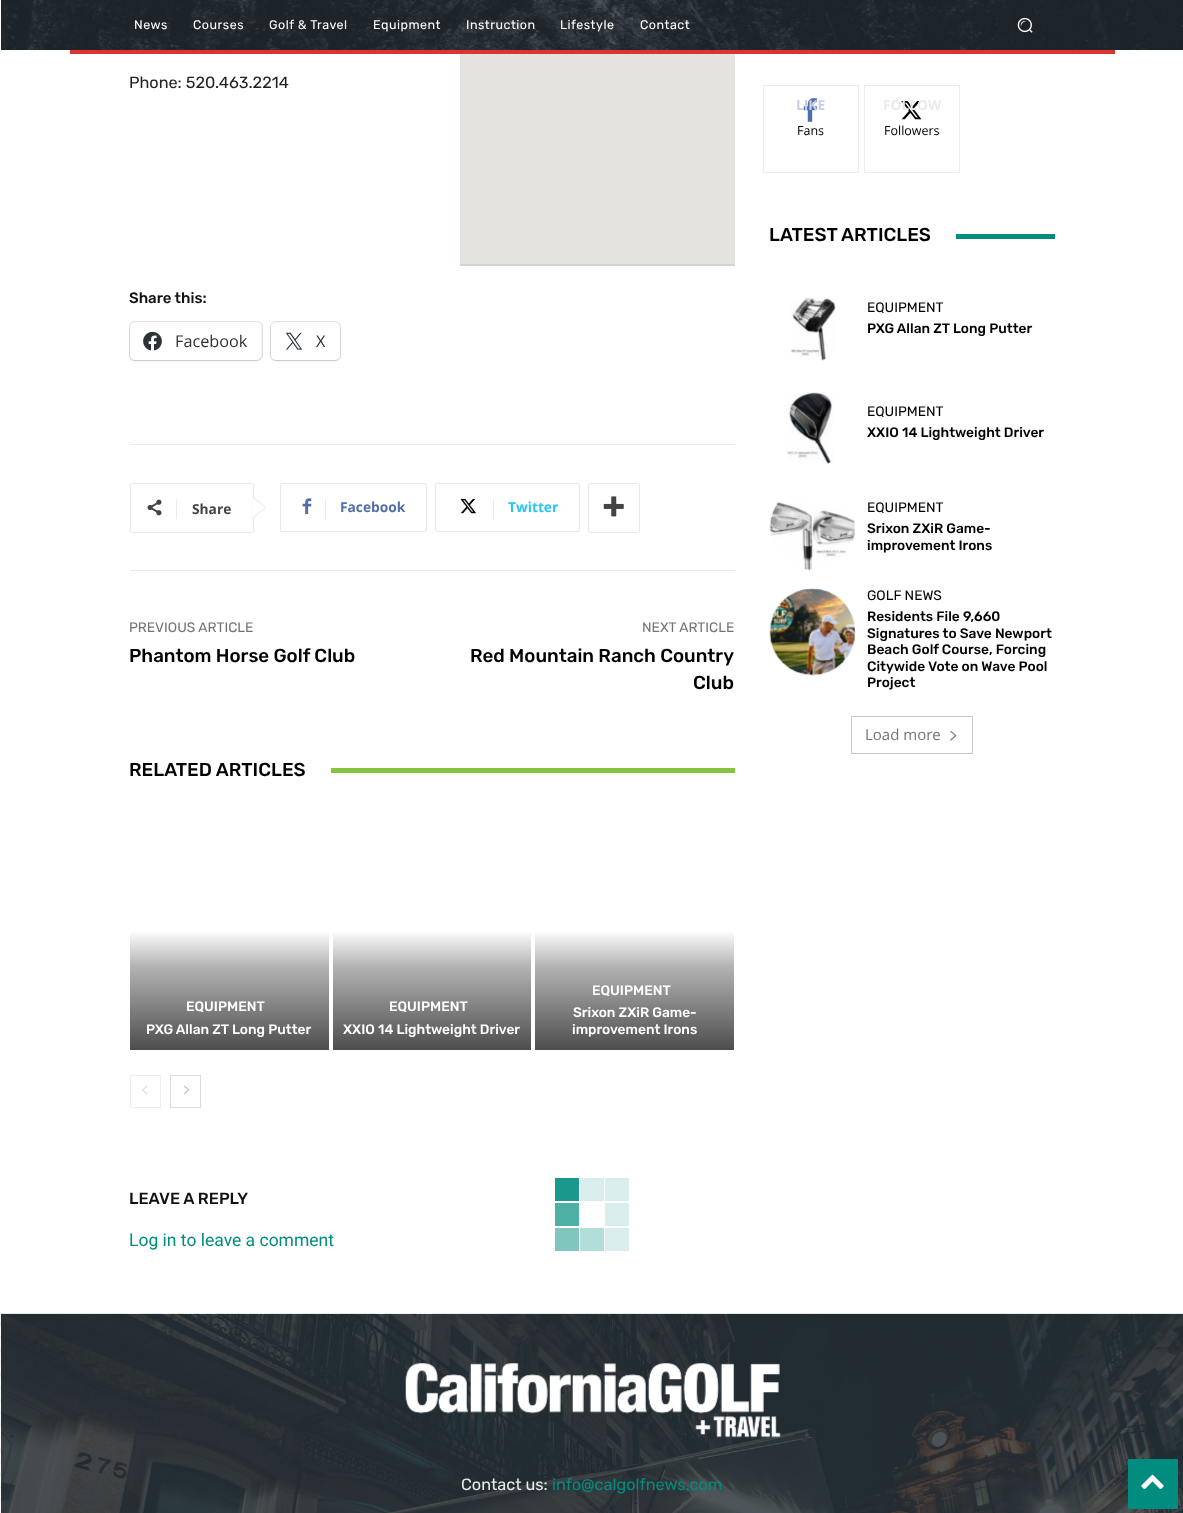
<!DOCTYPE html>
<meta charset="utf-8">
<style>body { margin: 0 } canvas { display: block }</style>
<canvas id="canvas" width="1183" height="1513"></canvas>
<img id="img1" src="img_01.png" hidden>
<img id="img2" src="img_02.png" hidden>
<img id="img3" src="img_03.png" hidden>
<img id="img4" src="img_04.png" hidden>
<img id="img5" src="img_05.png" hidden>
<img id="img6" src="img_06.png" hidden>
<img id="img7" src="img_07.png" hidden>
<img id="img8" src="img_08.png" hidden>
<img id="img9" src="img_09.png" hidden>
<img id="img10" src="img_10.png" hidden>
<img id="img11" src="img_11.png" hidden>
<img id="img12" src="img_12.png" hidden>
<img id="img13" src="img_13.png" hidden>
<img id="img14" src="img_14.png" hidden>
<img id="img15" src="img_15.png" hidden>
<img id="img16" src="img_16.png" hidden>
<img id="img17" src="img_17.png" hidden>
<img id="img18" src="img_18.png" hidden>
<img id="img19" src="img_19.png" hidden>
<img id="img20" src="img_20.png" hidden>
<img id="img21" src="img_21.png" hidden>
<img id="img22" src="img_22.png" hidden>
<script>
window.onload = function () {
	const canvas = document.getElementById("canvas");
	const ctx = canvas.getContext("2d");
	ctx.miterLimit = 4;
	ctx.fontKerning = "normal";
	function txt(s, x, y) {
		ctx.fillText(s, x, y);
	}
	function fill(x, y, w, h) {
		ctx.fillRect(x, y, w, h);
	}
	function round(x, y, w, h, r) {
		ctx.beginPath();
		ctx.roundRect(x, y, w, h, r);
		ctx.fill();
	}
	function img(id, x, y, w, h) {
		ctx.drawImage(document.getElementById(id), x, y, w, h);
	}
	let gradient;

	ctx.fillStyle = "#FFFFFF";
	fill(0, 0, 1183, 1513);
	img("img1", 0, 1314, 1, 199);
	ctx.fillStyle = "rgba(0, 0, 0, 0.12)";
	ctx.filter = "blur(6px)";
	ctx.beginPath();
	ctx.rect(-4, -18, 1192, 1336);
	ctx.fill();
	ctx.filter = "none";
	ctx.fillStyle = "#FFFFFF";
	fill(0, 0, 1183, 1314);
	ctx.fillStyle = "#232D35";
	fill(1, 0, 1182, 50);
	img("img2", 1, 0, 1182, 50);
	img("img3", 1017, 17, 16, 16);
	ctx.fillStyle = "#DD3333";
	fill(70, 50, 1045, 4);
	img("img4", 460, 54, 275, 212);
	ctx.beginPath();
	ctx.roundRect(129.5, 321.5, 133, 39, 5.5);
	ctx.strokeStyle = "#E0E0E0";
	ctx.stroke();
	ctx.fillStyle = "rgba(0, 0, 0, 0.12)";
	ctx.filter = "blur(1px)";
	ctx.beginPath();
	ctx.roundRect(130, 324, 131, 37, 5);
	ctx.fill();
	ctx.filter = "none";
	ctx.fillStyle = "#FFFFFF";
	round(130, 323, 131, 37, 5);
	img("img5", 143, 331, 19, 20);
	ctx.beginPath();
	ctx.roundRect(270.5, 321.5, 70, 39, 5.5);
	ctx.stroke();
	ctx.fillStyle = "rgba(0, 0, 0, 0.12)";
	ctx.filter = "blur(1px)";
	ctx.beginPath();
	ctx.roundRect(271, 324, 69, 37, 5);
	ctx.fill();
	ctx.filter = "none";
	ctx.fillStyle = "#FFFFFF";
	round(271, 323, 69, 37, 5);
	img("img6", 285, 332, 18, 18);
	ctx.fillStyle = "#EBEBEB";
	fill(130, 444, 605, 1);
	ctx.beginPath();
	ctx.roundRect(130.5, 483.5, 123, 49, 2);
	ctx.strokeStyle = "#E9E9E9";
	ctx.stroke();
	ctx.fillStyle = "#E9E9E9";
	ctx.beginPath();
	ctx.moveTo(252.5, 519);
	ctx.lineTo(252.5, 496);
	ctx.lineTo(266, 507.5);
	ctx.closePath();
	ctx.fill();
	img("img7", 147, 499, 15, 17);
	ctx.fillStyle = "#EBEBEB";
	fill(176, 499, 1, 20);
	ctx.fillStyle = "#FFFFFF";
	ctx.beginPath();
	ctx.moveTo(252.5, 517.5);
	ctx.lineTo(252.5, 497.5);
	ctx.lineTo(265, 507.5);
	ctx.closePath();
	ctx.fill();
	ctx.fillStyle = "#E9E9E9";
	fill(280, 484, 1, 47);
	img("img8", 302, 498, 10, 17);
	fill(281, 483, 145, 1);
	fill(426, 484, 1, 47);
	fill(281, 531, 145, 1);
	ctx.fillStyle = "#EBEBEB";
	fill(325, 499, 1, 20);
	ctx.fillStyle = "#E9E9E9";
	fill(435, 484, 1, 47);
	img("img9", 460, 499, 16, 15);
	fill(436, 483, 143, 1);
	fill(579, 484, 1, 47);
	fill(436, 531, 143, 1);
	ctx.fillStyle = "#EBEBEB";
	fill(493, 499, 1, 20);
	ctx.beginPath();
	ctx.roundRect(588.5, 483.5, 51, 49, 2);
	ctx.stroke();
	img("img10", 603, 496, 21, 21);
	fill(130, 570, 605, 1);
	ctx.fillStyle = "#85C442";
	fill(331, 768, 404, 5);
	gradient = ctx.createLinearGradient(229, 1050, 229, 811);
	gradient.addColorStop(0, "#4D4D4D");
	gradient.addColorStop(0.35, "#B3B3B3");
	gradient.addColorStop(0.5, "#FFFFFF");
	gradient.addColorStop(1, "#FFFFFF");
	ctx.fillStyle = gradient;
	fill(130, 932, 199, 118);
	gradient = ctx.createLinearGradient(432, 1050, 432, 811);
	gradient.addColorStop(0, "#4D4D4D");
	gradient.addColorStop(0.35, "#B3B3B3");
	gradient.addColorStop(0.5, "#FFFFFF");
	gradient.addColorStop(1, "#FFFFFF");
	ctx.fillStyle = gradient;
	fill(333, 932, 198, 118);
	gradient = ctx.createLinearGradient(634, 1050, 634, 811);
	gradient.addColorStop(0, "#4D4D4D");
	gradient.addColorStop(0.35, "#B3B3B3");
	gradient.addColorStop(0.5, "#FFFFFF");
	gradient.addColorStop(1, "#FFFFFF");
	ctx.fillStyle = gradient;
	fill(535, 932, 199, 118);
	ctx.strokeStyle = "#EEEEEE";
	ctx.strokeRect(130.5, 1075.5, 30, 32);
	img("img11", 142, 1085, 6, 10);
	ctx.strokeStyle = "#DCDCDC";
	ctx.strokeRect(170.5, 1075.5, 30, 32);
	img("img12", 183, 1085, 6, 10);
	ctx.strokeStyle = "#EDEDED";
	ctx.strokeRect(763.5, 85.5, 95, 87);
	img("img13", 803, 98, 14, 24);
	ctx.strokeRect(864.5, 85.5, 95, 87);
	img("img14", 901, 101, 21, 19);
	ctx.fillStyle = "#008D7F";
	fill(956, 234, 99, 5);
	img("img15", 790, 297, 46, 64);
	img("img16", 786, 392, 48, 72);
	img("img17", 769, 502, 86, 69);
	img("img18", 769, 588, 87, 88);
	ctx.strokeStyle = "#C9C9C9";
	ctx.strokeRect(851.5, 716.5, 121, 37);
	img("img19", 950, 730, 7, 11);
	ctx.fillStyle = "#1A988C";
	fill(555, 1178, 24, 23);
	ctx.fillStyle = "#D9EEEC";
	fill(580, 1178, 24, 23);
	fill(605, 1178, 24, 23);
	ctx.fillStyle = "#4DAFA5";
	fill(555, 1203, 24, 23);
	ctx.fillStyle = "#D9EEEC";
	fill(605, 1203, 24, 23);
	ctx.fillStyle = "#80C6BF";
	fill(555, 1228, 24, 23);
	ctx.fillStyle = "#B3DDD9";
	fill(580, 1228, 24, 23);
	ctx.fillStyle = "#D9EEEC";
	fill(605, 1228, 24, 23);
	ctx.fillStyle = "#232D35";
	fill(1, 1314, 1182, 199);
	img("img20", 0, 1313, 1183, 200);
	img("img21", 405, 1363, 376, 75);
	ctx.fillStyle = "#008D7F";
	fill(1128, 1459, 50, 50);
	img("img22", 1141, 1474, 23, 16);
	ctx.letterSpacing = "0.5px";
	ctx.font = "12.5px Rubik";
	ctx.fillStyle = "#FFFFFF";
	txt("News", 134, 29);
	txt("Courses", 193, 29);
	txt("Golf & Travel", 269, 29);
	txt("Equipment", 373, 29);
	txt("Instruction", 466, 29);
	txt("Lifestyle", 560, 29);
	txt("Contact", 640, 29);
	ctx.letterSpacing = "0px";
	ctx.font = "16.25px Rubik";
	ctx.fillStyle = "#222222";
	txt("Phone: 520.463.2214", 129, 88);
	ctx.font = "500 15px Rubik";
	ctx.fillStyle = "#111111";
	txt("Share this:", 129, 303);
	ctx.font = "16.25px Open Sans";
	ctx.fillStyle = "#2C3338";
	txt("Facebook", 175, 347);
	txt("X", 316, 347);
	ctx.font = "bold 13.75px Open Sans";
	ctx.fillStyle = "#444444";
	txt("Share", 192, 514);
	ctx.fillStyle = "#516EAB";
	txt("Facebook", 340, 512);
	ctx.fillStyle = "#29C5F6";
	txt("Twitter", 508, 512);
	ctx.font = "13.75px Rubik";
	ctx.fillStyle = "#747474";
	txt("PREVIOUS ARTICLE", 129, 632);
	ctx.font = "500 18.75px Rubik";
	ctx.fillStyle = "#000000";
	txt("Phantom Horse Golf Club", 129, 662);
	ctx.font = "13.75px Rubik";
	ctx.fillStyle = "#747474";
	txt("NEXT ARTICLE", 642, 632);
	ctx.font = "500 18.75px Rubik";
	ctx.fillStyle = "#000000";
	txt("Red Mountain Ranch Country", 470, 662);
	txt("Club", 693, 689);
	txt("RELATED ARTICLES", 129, 776);
	ctx.font = "500 13.75px Rubik";
	ctx.fillStyle = "#FFFFFF";
	txt("EQUIPMENT", 186, 1011);
	txt("PXG Allan ZT Long Putter", 146, 1034);
	txt("EQUIPMENT", 389, 1011);
	txt("XXIO 14 Lightweight Driver", 343, 1034);
	txt("EQUIPMENT", 592, 995);
	txt("Srixon ZXiR Game-", 573, 1017);
	txt("improvement Irons", 572, 1034);
	ctx.font = "500 16.25px Rubik";
	ctx.fillStyle = "#111111";
	txt("LEAVE A REPLY", 129, 1204);
	ctx.font = "17.5px Roboto";
	ctx.fillStyle = "#008D7F";
	txt("Log in to leave a comment", 129, 1246);
	ctx.font = "bold 13.75px Open Sans";
	ctx.fillStyle = "#C6CFE3";
	txt("LIKE", 796, 110);
	ctx.font = "12.5px Open Sans";
	ctx.fillStyle = "#000000";
	txt("Fans", 797, 135);
	ctx.font = "bold 13.75px Open Sans";
	ctx.fillStyle = "#EAEAEA";
	txt("FOLLOW", 883, 110);
	ctx.font = "12.5px Open Sans";
	ctx.fillStyle = "#000000";
	txt("Followers", 884, 135);
	ctx.font = "500 18.75px Rubik";
	txt("LATEST ARTICLES", 769, 241);
	ctx.font = "13.75px Rubik";
	txt("EQUIPMENT", 867, 312);
	ctx.font = "500 13.75px Rubik";
	txt("PXG Allan ZT Long Putter", 867, 333);
	ctx.font = "13.75px Rubik";
	txt("EQUIPMENT", 867, 416);
	ctx.font = "500 13.75px Rubik";
	txt("XXIO 14 Lightweight Driver", 867, 437);
	ctx.font = "13.75px Rubik";
	txt("EQUIPMENT", 867, 512);
	ctx.font = "500 13.75px Rubik";
	txt("Srixon ZXiR Game-", 867, 533);
	txt("improvement Irons", 867, 550);
	ctx.font = "13.75px Rubik";
	txt("GOLF NEWS", 867, 600);
	ctx.font = "500 13.75px Rubik";
	txt("Residents File 9,660", 867, 621);
	txt("Signatures to Save Newport", 867, 638);
	txt("Beach Golf Course, Forcing", 867, 654);
	txt("Citywide Vote on Wave Pool", 867, 671);
	txt("Project", 867, 687);
	ctx.font = "15px Open Sans";
	ctx.fillStyle = "#747474";
	txt("Load more", 865, 740);
	ctx.font = "16.25px Rubik";
	ctx.fillStyle = "#EAEAEA";
	txt("Contact us:", 461, 1490);
	ctx.fillStyle = "#008D7F";
	txt("info@calgolfnews.com", 552, 1490);
};
</script>
